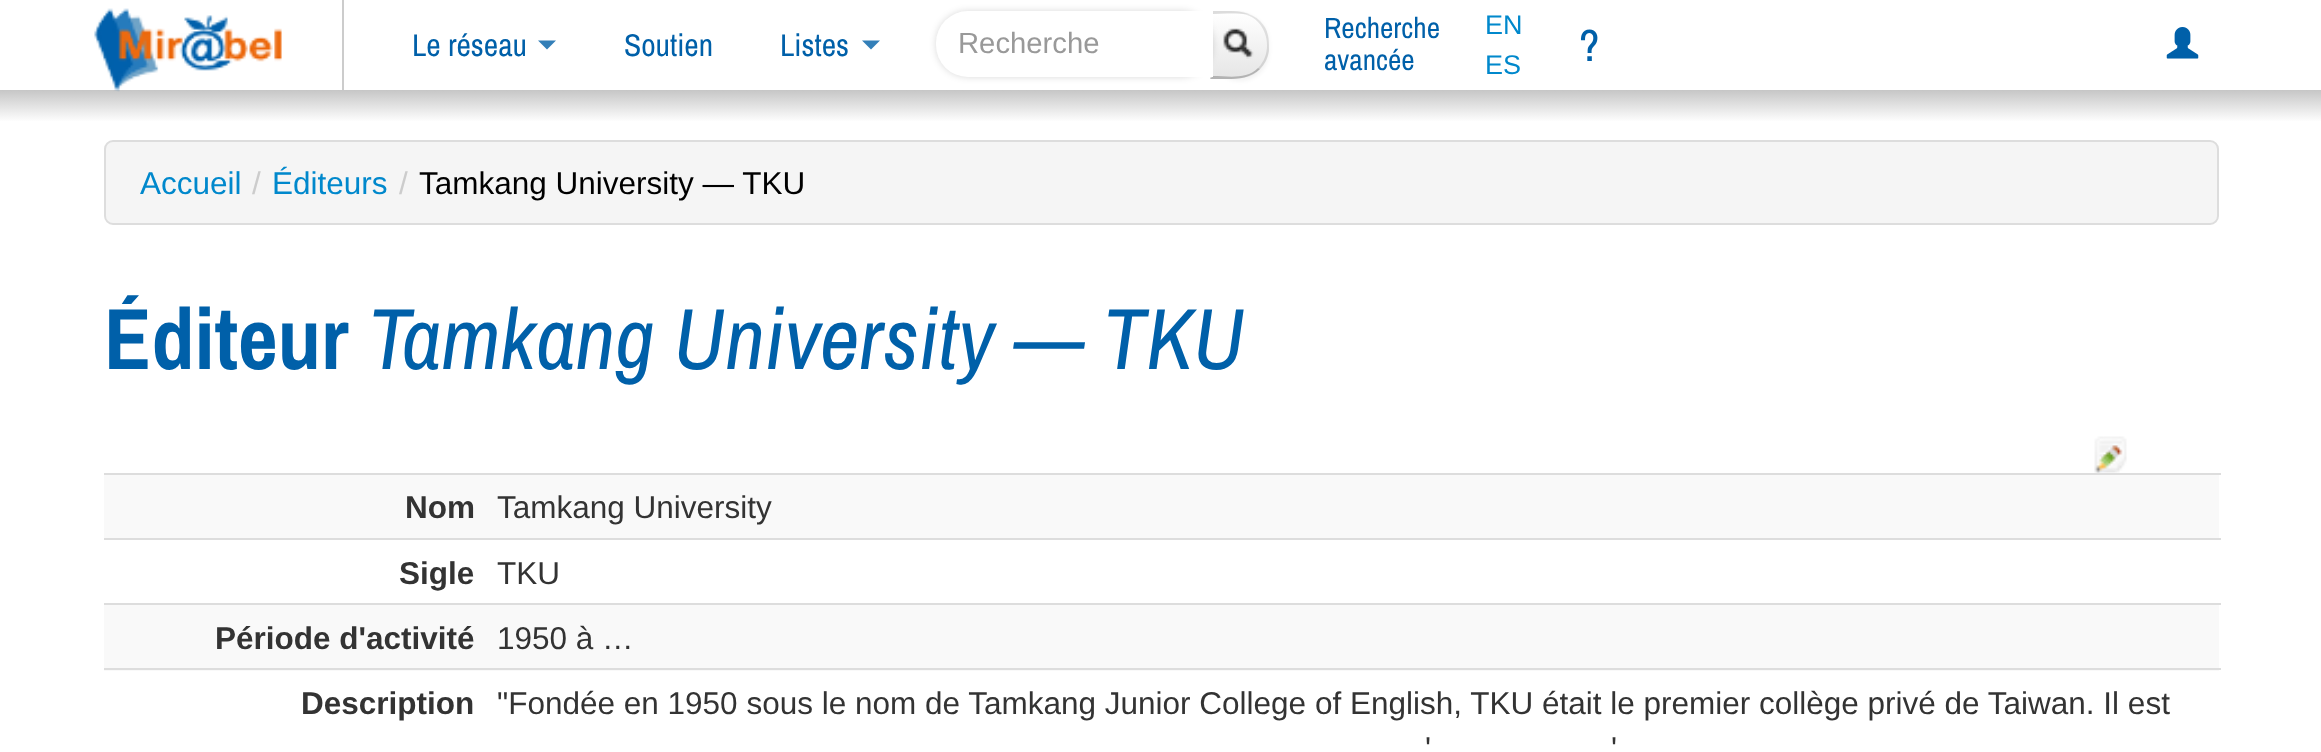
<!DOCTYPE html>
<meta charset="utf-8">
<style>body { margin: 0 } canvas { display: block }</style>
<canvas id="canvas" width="2321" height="752"></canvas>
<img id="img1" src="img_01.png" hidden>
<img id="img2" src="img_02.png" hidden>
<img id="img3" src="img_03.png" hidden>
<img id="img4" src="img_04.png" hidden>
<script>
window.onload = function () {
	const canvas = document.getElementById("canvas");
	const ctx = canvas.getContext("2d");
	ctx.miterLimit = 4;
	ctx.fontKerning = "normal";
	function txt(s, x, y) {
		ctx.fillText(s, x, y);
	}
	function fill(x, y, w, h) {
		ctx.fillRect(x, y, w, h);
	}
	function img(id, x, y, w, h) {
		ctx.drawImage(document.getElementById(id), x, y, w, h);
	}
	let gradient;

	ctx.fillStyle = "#FFFFFF";
	fill(0, 0, 2321, 752);
	ctx.fillStyle = "#CCCCCC";
	fill(342, 0, 2, 90);
	gradient = ctx.createLinearGradient(1161, 90, 1161, 122);
	gradient.addColorStop(0, "#C6C6C6");
	gradient.addColorStop(1, "#FFFFFF");
	ctx.fillStyle = gradient;
	fill(0, 90, 2321, 31);
	img("img1", 94, 8, 188, 84);
	ctx.fillStyle = "#337FB8";
	ctx.beginPath();
	ctx.moveTo(538, 40.5);
	ctx.lineTo(556, 40.5);
	ctx.lineTo(547, 49.5);
	ctx.closePath();
	ctx.fill();
	ctx.beginPath();
	ctx.moveTo(862, 40.5);
	ctx.lineTo(880, 40.5);
	ctx.lineTo(871, 49.5);
	ctx.closePath();
	ctx.fill();
	ctx.fillStyle = "rgba(0, 0, 0, 0.05)";
	ctx.filter = "blur(2px)";
	ctx.beginPath();
	ctx.roundRect(1211, 14, 58, 67, 32);
	ctx.fill();
	ctx.filter = "none";
	ctx.fillStyle = "#F5F5F5";
	ctx.beginPath();
	ctx.roundRect(1211, 11, 58, 68, [0, 32, 32, 0]);
	ctx.fill();
	ctx.save();
	ctx.beginPath();
	ctx.roundRect(1211, 11, 58, 68, [0, 32, 32, 0]);
	ctx.clip();
	gradient = ctx.createLinearGradient(1240, 13, 1240, 77);
	gradient.addColorStop(0, "#FFFFFF");
	gradient.addColorStop(1, "#E6E6E6");
	ctx.fillStyle = gradient;
	fill(1213, 14, 56, 63);
	ctx.restore();
	ctx.fillStyle = "rgba(0, 0, 0, 0.1)";
	ctx.beginPath();
	ctx.moveTo(1210, 11);
	ctx.lineTo(1227, 11);
	ctx.bezierCurveTo(1239, 11, 1251, 12, 1260, 21);
	ctx.lineTo(1258, 22);
	ctx.bezierCurveTo(1247, 10, 1228, 14, 1213, 14);
	ctx.closePath();
	ctx.fill();
	ctx.beginPath();
	ctx.moveTo(1269, 51);
	ctx.bezierCurveTo(1268, 58, 1265, 64, 1260, 69);
	ctx.lineTo(1258, 68);
	ctx.bezierCurveTo(1270, 56, 1270, 35, 1258, 22);
	ctx.lineTo(1260, 21);
	ctx.bezierCurveTo(1269, 30, 1269, 39, 1269, 51);
	ctx.closePath();
	ctx.fill();
	ctx.fillStyle = "#B3B3B3";
	ctx.beginPath();
	ctx.moveTo(1260, 69);
	ctx.bezierCurveTo(1251, 78, 1239, 79, 1227, 79);
	ctx.lineTo(1210, 79);
	ctx.lineTo(1213, 76);
	ctx.bezierCurveTo(1228, 76, 1246, 80, 1258, 68);
	ctx.closePath();
	ctx.fill();
	ctx.fillStyle = "rgba(0, 0, 0, 0.1)";
	ctx.beginPath();
	ctx.moveTo(1213, 14);
	ctx.lineTo(1210, 11);
	ctx.lineTo(1210, 79);
	ctx.lineTo(1213, 76);
	ctx.closePath();
	ctx.fill();
	img("img2", 1223, 28, 31, 31);
	ctx.fillStyle = "rgba(0, 0, 0, 0.15)";
	ctx.filter = "blur(3.5px)";
	ctx.beginPath();
	ctx.roundRect(936, 11, 277, 66, 32);
	ctx.fill();
	ctx.filter = "none";
	ctx.fillStyle = "#FFFFFF";
	ctx.beginPath();
	ctx.roundRect(936, 11, 277, 66, [32, 0, 0, 32]);
	ctx.fill();
	img("img3", 2166, 27, 33, 32);
	ctx.fillStyle = "#F5F5F5";
	ctx.beginPath();
	ctx.roundRect(105, 141, 2113, 83, 8);
	ctx.fill();
	ctx.strokeStyle = "#DDDDDD";
	ctx.lineWidth = 2;
	ctx.stroke();
	img("img4", 2094, 436, 33, 37);
	ctx.fillStyle = "#F9F9F9";
	fill(104, 475, 2115, 63);
	ctx.fillStyle = "#DDDDDD";
	fill(104, 473, 2117, 2);
	fill(104, 538, 2117, 2);
	ctx.fillStyle = "#F9F9F9";
	fill(104, 605, 2115, 66);
	ctx.fillStyle = "#DDDDDD";
	fill(104, 603, 2117, 2);
	fill(104, 668, 2117, 2);
	ctx.font = "31.5px Archivo Narrow";
	ctx.fillStyle = "#0060A9";
	txt("Le réseau", 412, 56);
	txt("Soutien", 624, 56);
	txt("Listes", 780, 56);
	ctx.font = "29.25px Liberation Sans";
	ctx.fillStyle = "#999999";
	txt("Recherche", 958, 53);
	ctx.font = "29.25px Archivo Narrow";
	ctx.fillStyle = "#0060A9";
	txt("Recherche", 1324, 38);
	txt("avancée", 1324, 70);
	ctx.font = "27px Liberation Sans";
	ctx.fillStyle = "#0088CC";
	txt("EN", 1485, 34);
	txt("ES", 1485, 74);
	ctx.font = "45px Archivo Narrow";
	ctx.fillStyle = "#0060A9";
	txt("?", 1579, 61);
	ctx.font = "31.5px Liberation Sans";
	ctx.fillStyle = "#0088CC";
	txt("Accueil", 140, 194);
	ctx.fillStyle = "#CCCCCC";
	txt("/", 252, 194);
	ctx.fillStyle = "#0088CC";
	txt("Éditeurs", 272, 194);
	ctx.fillStyle = "#CCCCCC";
	txt("/", 399, 194);
	ctx.fillStyle = "#000000";
	txt("Tamkang University — TKU", 419, 194);
	ctx.font = "bold 86.6px Archivo Narrow";
	ctx.fillStyle = "#0060A9";
	txt("Éditeur", 104, 369);
	ctx.font = "italic 86.6px Archivo Narrow";
	txt("Tamkang University — TKU", 368, 369);
	ctx.font = "bold 31.5px Liberation Sans";
	ctx.fillStyle = "#333333";
	txt("Nom", 405, 518);
	ctx.font = "31.5px Liberation Sans";
	txt("Tamkang University", 497, 518);
	ctx.font = "bold 31.5px Liberation Sans";
	txt("Sigle", 399, 584);
	ctx.font = "31.5px Liberation Sans";
	txt("TKU", 497, 584);
	ctx.font = "bold 31.5px Liberation Sans";
	txt("Période d'activité", 215, 649);
	ctx.font = "31.5px Liberation Sans";
	txt("1950 à …", 497, 649);
	ctx.font = "bold 31.5px Liberation Sans";
	txt("Description", 301, 714);
	ctx.font = "31.5px Liberation Sans";
	txt("\"Fondée en 1950 sous le nom de Tamkang Junior College of English, TKU était le premier collège privé de Taiwan. Il est", 497, 714);
	txt("'", 1425, 759);
	txt("'", 1611, 759);
};
</script>
